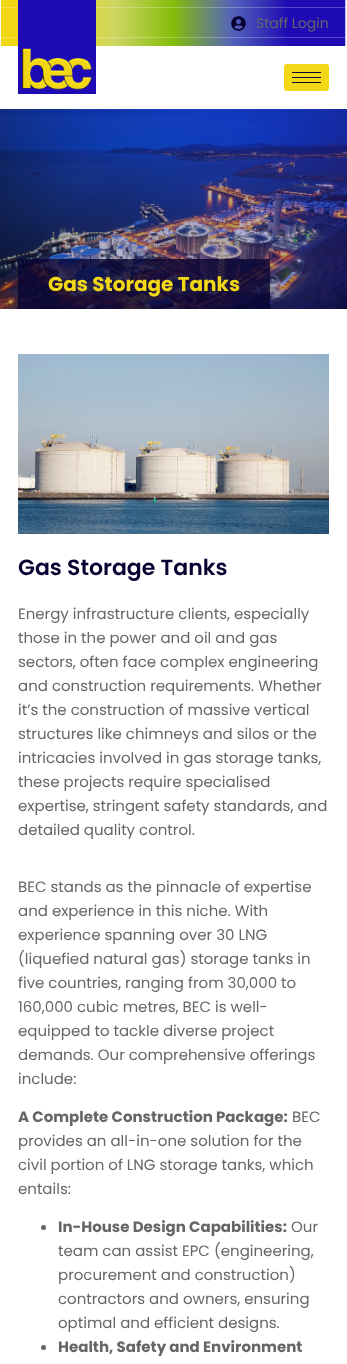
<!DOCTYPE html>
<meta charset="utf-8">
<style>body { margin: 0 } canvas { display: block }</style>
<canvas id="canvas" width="347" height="1364"></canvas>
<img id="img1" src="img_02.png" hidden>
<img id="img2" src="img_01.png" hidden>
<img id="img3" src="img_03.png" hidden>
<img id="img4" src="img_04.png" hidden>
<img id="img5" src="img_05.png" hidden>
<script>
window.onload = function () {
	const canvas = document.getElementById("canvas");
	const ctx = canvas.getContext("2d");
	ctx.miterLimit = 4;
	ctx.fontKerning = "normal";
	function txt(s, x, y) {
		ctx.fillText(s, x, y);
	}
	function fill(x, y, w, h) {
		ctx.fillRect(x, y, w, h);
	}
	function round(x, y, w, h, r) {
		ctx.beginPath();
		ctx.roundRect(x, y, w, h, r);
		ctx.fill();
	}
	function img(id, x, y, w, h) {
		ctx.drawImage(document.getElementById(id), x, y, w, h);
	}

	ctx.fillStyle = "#FFFFFF";
	fill(0, 0, 347, 1364);
	ctx.fillStyle = "#F9F9F9";
	fill(0, 0, 347, 46);
	img("img1", 0, 0, 346, 46);
	img("img2", 18, 0, 78, 94);
	ctx.fillStyle = "#F2D716";
	round(284, 64, 45, 27, 3);
	ctx.fillStyle = "#070230";
	fill(292, 72, 29, 1);
	fill(292, 77, 29, 1);
	fill(292, 82, 29, 1);
	img("img3", 231, 16, 15, 15);
	img("img4", 0, 109, 347, 200);
	ctx.fillStyle = "rgba(7, 2, 48, 0.76)";
	fill(18, 259, 252, 50);
	img("img5", 18, 354, 311, 180);
	ctx.fillStyle = "#666666";
	ctx.beginPath();
	ctx.arc(43.5, 1227.5, 2.5, 0, Math.PI * 2);
	ctx.fill();
	ctx.beginPath();
	ctx.arc(43.5, 1347.5, 2.5, 0, Math.PI * 2);
	ctx.fill();
	ctx.font = "14px Poppins";
	txt("Staff Login", 256, 28);
	ctx.font = "bold 20px Poppins";
	ctx.fillStyle = "#F2D716";
	txt("Gas Storage Tanks", 48, 291);
	ctx.font = "600 22px Poppins";
	ctx.fillStyle = "#070230";
	txt("Gas Storage Tanks", 18, 575);
	ctx.font = "15px Poppins";
	ctx.fillStyle = "#666666";
	txt("Energy infrastructure clients, especially", 18, 619);
	txt("those in the power and oil and gas", 18, 643);
	txt("sectors, often face complex engineering", 18, 667);
	txt("and construction requirements. Whether", 18, 691);
	txt("it’s the construction of massive vertical", 18, 715);
	txt("structures like chimneys and silos or the", 18, 739);
	txt("intricacies involved in gas storage tanks,", 18, 763);
	txt("these projects require specialised", 18, 787);
	txt("expertise, stringent safety standards, and", 18, 811);
	txt("detailed quality control.", 18, 835);
	txt("BEC stands as the pinnacle of expertise", 18, 892);
	txt("and experience in this niche. With", 18, 916);
	txt("experience spanning over 30 LNG", 18, 940);
	txt("(liquefied natural gas) storage tanks in", 18, 964);
	txt("five countries, ranging from 30,000 to", 18, 988);
	txt("160,000 cubic metres, BEC is well-", 18, 1012);
	txt("equipped to tackle diverse project", 18, 1036);
	txt("demands. Our comprehensive offerings", 18, 1060);
	txt("include:", 18, 1084);
	ctx.font = "bold 15px Poppins";
	txt("A Complete Construction Package:", 18, 1122);
	ctx.font = "15px Poppins";
	txt("BEC", 292, 1122);
	txt("provides an all-in-one solution for the", 18, 1146);
	txt("civil portion of LNG storage tanks, which", 18, 1170);
	txt("entails:", 18, 1194);
	ctx.font = "bold 15px Poppins";
	txt("In-House Design Capabilities:", 58, 1232);
	ctx.font = "15px Poppins";
	txt("Our", 291, 1232);
	txt("team can assist EPC (engineering,", 58, 1256);
	txt("procurement and construction)", 58, 1280);
	txt("contractors and owners, ensuring", 58, 1304);
	txt("optimal and efficient designs.", 58, 1328);
	ctx.font = "bold 15px Poppins";
	txt("Health, Safety and Environment", 58, 1352);
};
</script>
